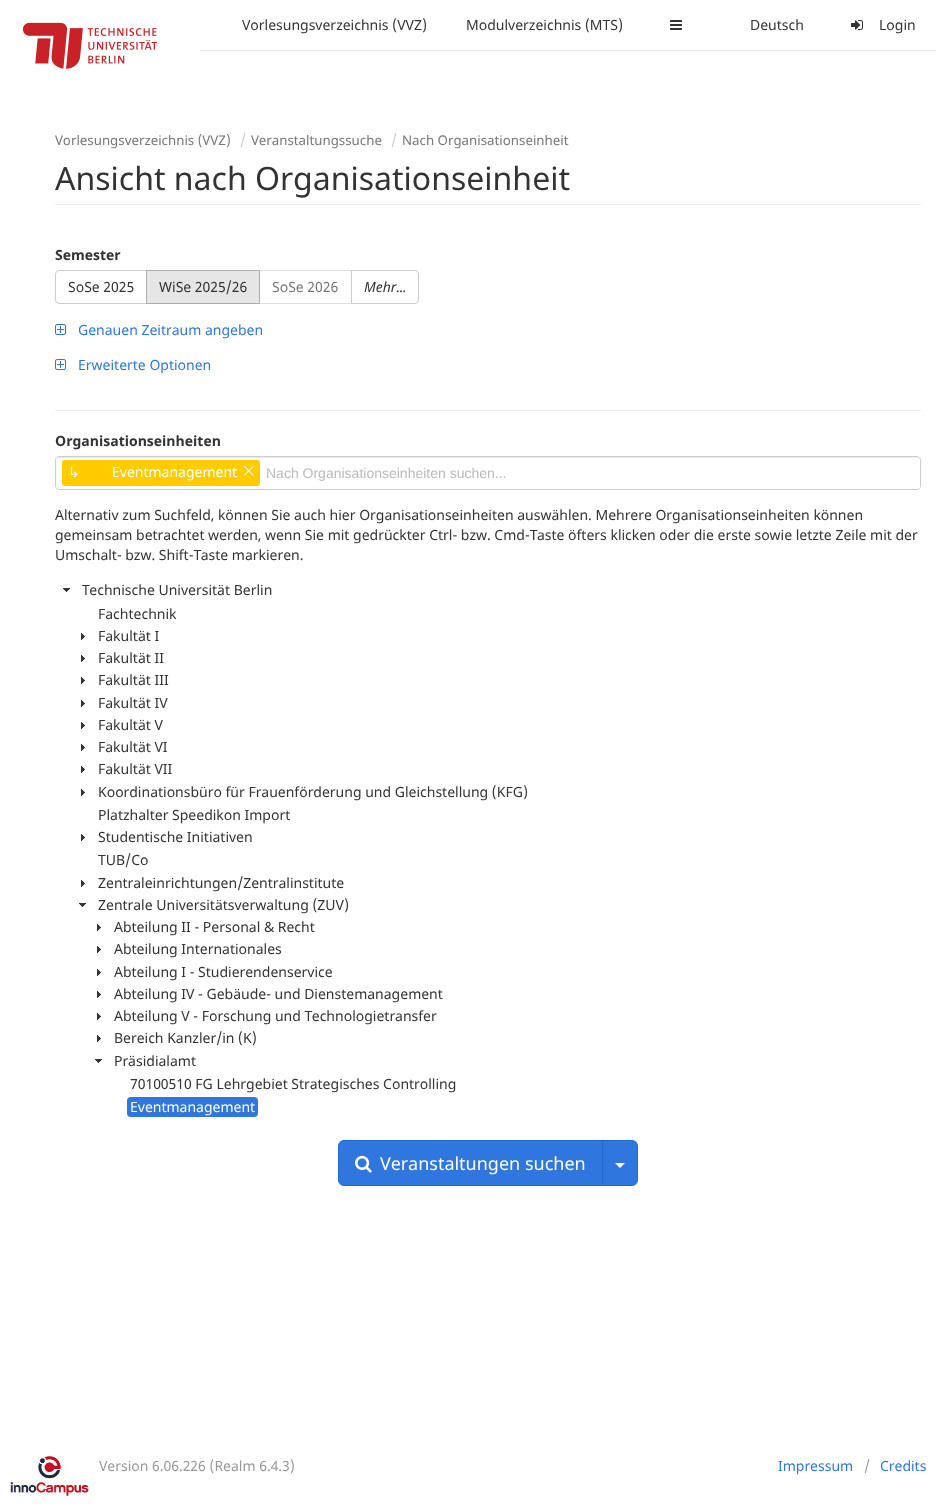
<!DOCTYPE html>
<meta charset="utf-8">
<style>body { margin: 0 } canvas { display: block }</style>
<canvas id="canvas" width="936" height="1506"></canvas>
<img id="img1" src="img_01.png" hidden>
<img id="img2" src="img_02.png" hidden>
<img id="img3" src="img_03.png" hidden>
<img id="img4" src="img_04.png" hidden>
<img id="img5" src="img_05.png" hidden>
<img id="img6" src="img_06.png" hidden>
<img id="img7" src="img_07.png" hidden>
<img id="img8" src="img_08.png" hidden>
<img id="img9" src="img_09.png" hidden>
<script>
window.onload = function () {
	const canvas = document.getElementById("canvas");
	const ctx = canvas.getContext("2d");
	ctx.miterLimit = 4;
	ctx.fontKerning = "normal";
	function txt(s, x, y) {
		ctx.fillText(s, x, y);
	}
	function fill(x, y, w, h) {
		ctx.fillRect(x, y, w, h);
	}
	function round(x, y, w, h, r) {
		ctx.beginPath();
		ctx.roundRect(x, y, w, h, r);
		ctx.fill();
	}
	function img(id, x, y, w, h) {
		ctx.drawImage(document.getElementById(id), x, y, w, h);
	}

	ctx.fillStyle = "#FFFFFF";
	fill(0, 0, 936, 1506);
	img("img1", 22, 22, 136, 47);
	img("img2", 670, 20, 12, 10);
	img("img3", 851, 20, 12, 10);
	ctx.fillStyle = "#E5E5E5";
	fill(200, 50, 736, 1);
	ctx.fillStyle = "#EEEEEE";
	fill(55, 204, 866, 1);
	ctx.beginPath();
	ctx.roundRect(55.5, 270.5, 91, 33, [3.5, 0, 0, 3.5]);
	ctx.strokeStyle = "#CCCCCC";
	ctx.stroke();
	ctx.strokeStyle = "#DEDEDE";
	ctx.strokeRect(259.5, 270.5, 92, 33);
	ctx.fillStyle = "#E6E6E6";
	ctx.beginPath();
	ctx.rect(146.5, 270.5, 113, 33);
	ctx.fill();
	ctx.strokeStyle = "#ADADAD";
	ctx.stroke();
	ctx.fillStyle = "#FFFFFF";
	ctx.beginPath();
	ctx.roundRect(351.5, 270.5, 67, 33, [0, 3.5, 3.5, 0]);
	ctx.fill();
	ctx.strokeStyle = "#CCCCCC";
	ctx.stroke();
	img("img4", 55, 324, 11, 11);
	img("img4", 55, 359, 11, 11);
	ctx.fillStyle = "#EEEEEE";
	fill(55, 410, 866, 1);
	ctx.beginPath();
	ctx.roundRect(55.5, 456.5, 865, 33, 3.5);
	ctx.stroke();
	ctx.fillStyle = "#FFFFFF";
	round(56, 457, 864, 32, 3);
	ctx.fillStyle = "#ECECEC";
	ctx.beginPath();
	ctx.moveTo(59, 458);
	ctx.lineTo(917, 458);
	ctx.bezierCurveTo(919, 458, 920, 459, 920, 461);
	ctx.bezierCurveTo(920, 459, 919, 457, 917, 457);
	ctx.lineTo(59, 457);
	ctx.bezierCurveTo(57, 457, 56, 459, 56, 461);
	ctx.bezierCurveTo(56, 459, 57, 458, 59, 458);
	ctx.closePath();
	ctx.fill();
	ctx.fillStyle = "#FFCC00";
	round(62, 460, 198, 26, 3);
	img("img5", 244, 466, 10, 10);
	img("img6", 63, 588, 7, 4);
	img("img7", 81, 633, 4, 7);
	img("img7", 81, 655, 4, 7);
	img("img7", 81, 677, 4, 7);
	img("img7", 81, 700, 4, 7);
	img("img7", 81, 722, 4, 7);
	img("img7", 81, 744, 4, 7);
	img("img7", 81, 766, 4, 7);
	img("img7", 81, 789, 4, 7);
	img("img7", 81, 834, 4, 7);
	img("img7", 81, 880, 4, 7);
	img("img6", 79, 903, 7, 4);
	img("img7", 97, 924, 4, 7);
	img("img7", 97, 946, 4, 7);
	img("img7", 97, 969, 4, 7);
	img("img7", 97, 991, 4, 7);
	img("img7", 97, 1013, 4, 7);
	img("img7", 97, 1035, 4, 7);
	img("img6", 95, 1059, 7, 4);
	ctx.fillStyle = "#2F76DF";
	round(127, 1097, 131, 20, 4);
	ctx.beginPath();
	ctx.roundRect(338.5, 1140.5, 264, 45, [5.5, 0, 0, 5.5]);
	ctx.fill();
	ctx.strokeStyle = "#2169D4";
	ctx.stroke();
	img("img8", 355, 1155, 17, 18);
	ctx.beginPath();
	ctx.roundRect(602.5, 1140.5, 35, 45, [0, 5.5, 5.5, 0]);
	ctx.fill();
	ctx.stroke();
	ctx.fillStyle = "#FFFFFF";
	ctx.beginPath();
	ctx.moveTo(615, 1163);
	ctx.lineTo(625, 1163);
	ctx.lineTo(620, 1168);
	ctx.closePath();
	ctx.fill();
	img("img9", 10, 1456, 79, 40);
	ctx.font = "14px Noto Sans";
	ctx.fillStyle = "#333333";
	txt("Vorlesungsverzeichnis (VVZ)", 242, 30);
	txt("Modulverzeichnis (MTS)", 466, 30);
	txt("Deutsch", 750, 30);
	txt("Login", 879, 30);
	ctx.font = "13.3px Noto Sans";
	ctx.fillStyle = "#777777";
	txt("Vorlesungsverzeichnis (VVZ)", 55, 145);
	ctx.font = "14px Noto Sans";
	ctx.fillStyle = "#CCCCCC";
	txt("/", 240, 145);
	ctx.font = "13.3px Noto Sans";
	ctx.fillStyle = "#777777";
	txt("Veranstaltungssuche", 251, 145);
	ctx.font = "14px Noto Sans";
	ctx.fillStyle = "#CCCCCC";
	txt("/", 391, 145);
	ctx.font = "13.3px Noto Sans";
	ctx.fillStyle = "#777777";
	txt("Nach Organisationseinheit", 402, 145);
	ctx.font = "32px Noto Sans";
	ctx.fillStyle = "#333333";
	txt("Ansicht nach Organisationseinheit", 55, 190);
	ctx.font = "bold 14px Noto Sans";
	txt("Semester", 55, 260);
	ctx.font = "14px Noto Sans";
	txt("SoSe 2025", 68, 292);
	txt("WiSe 2025/26", 159, 292);
	ctx.fillStyle = "#777777";
	txt("SoSe 2026", 272, 292);
	ctx.font = "italic 14px Noto Sans";
	ctx.fillStyle = "#333333";
	txt("Mehr...", 364, 292);
	ctx.font = "14px Noto Sans";
	ctx.fillStyle = "#2F76DF";
	txt("Genauen Zeitraum angeben", 78, 335);
	txt("Erweiterte Optionen", 78, 370);
	ctx.font = "bold 14px Noto Sans";
	ctx.fillStyle = "#333333";
	txt("Organisationseinheiten", 55, 446);
	ctx.font = "14px DejaVu Sans";
	ctx.fillStyle = "#FFFFFF";
	txt("↳", 68, 477);
	ctx.font = "14px Noto Sans";
	txt("Eventmanagement", 112, 477);
	ctx.font = "14px Liberation Sans";
	ctx.fillStyle = "#BBBBBB";
	txt("Nach Organisationseinheiten suchen...", 266, 478);
	ctx.font = "14px Noto Sans";
	ctx.fillStyle = "#333333";
	txt("Alternativ zum Suchfeld, können Sie auch hier Organisationseinheiten auswählen. Mehrere Organisationseinheiten können", 55, 520);
	txt("gemeinsam betrachtet werden, wenn Sie mit gedrückter Ctrl- bzw. Cmd-Taste öfters klicken oder die erste sowie letzte Zeile mit der", 55, 540);
	txt("Umschalt- bzw. Shift-Taste markieren.", 55, 560);
	txt("Technische Universität Berlin", 82, 595);
	txt("Fachtechnik", 98, 619);
	txt("Fakultät I", 98, 641);
	txt("Fakultät II", 98, 663);
	txt("Fakultät III", 98, 685);
	txt("Fakultät IV", 98, 708);
	txt("Fakultät V", 98, 730);
	txt("Fakultät VI", 98, 752);
	txt("Fakultät VII", 98, 774);
	txt("Koordinationsbüro für Frauenförderung und Gleichstellung (KFG)", 98, 797);
	txt("Platzhalter Speedikon Import", 98, 820);
	txt("Studentische Initiativen", 98, 842);
	txt("TUB/Co", 98, 865);
	txt("Zentraleinrichtungen/Zentralinstitute", 98, 888);
	txt("Zentrale Universitätsverwaltung (ZUV)", 98, 910);
	txt("Abteilung II - Personal & Recht", 114, 932);
	txt("Abteilung Internationales", 114, 954);
	txt("Abteilung I - Studierendenservice", 114, 977);
	txt("Abteilung IV - Gebäude- und Dienstemanagement", 114, 999);
	txt("Abteilung V - Forschung und Technologietransfer", 114, 1021);
	txt("Bereich Kanzler/in (K)", 114, 1043);
	txt("Präsidialamt", 114, 1066);
	txt("70100510 FG Lehrgebiet Strategisches Controlling", 130, 1089);
	ctx.fillStyle = "#FFFFFF";
	txt("Eventmanagement", 130, 1112);
	ctx.font = "18px Noto Sans";
	txt("Veranstaltungen suchen", 380, 1170);
	ctx.font = "14px Noto Sans";
	ctx.fillStyle = "#999999";
	txt("Version 6.06.226 (Realm 6.4.3)", 99, 1471);
	ctx.fillStyle = "#2F76DF";
	txt("Impressum", 778, 1471);
	ctx.fillStyle = "#999999";
	txt("/", 864, 1471);
	ctx.fillStyle = "#2F76DF";
	txt("Credits", 880, 1471);
};
</script>
